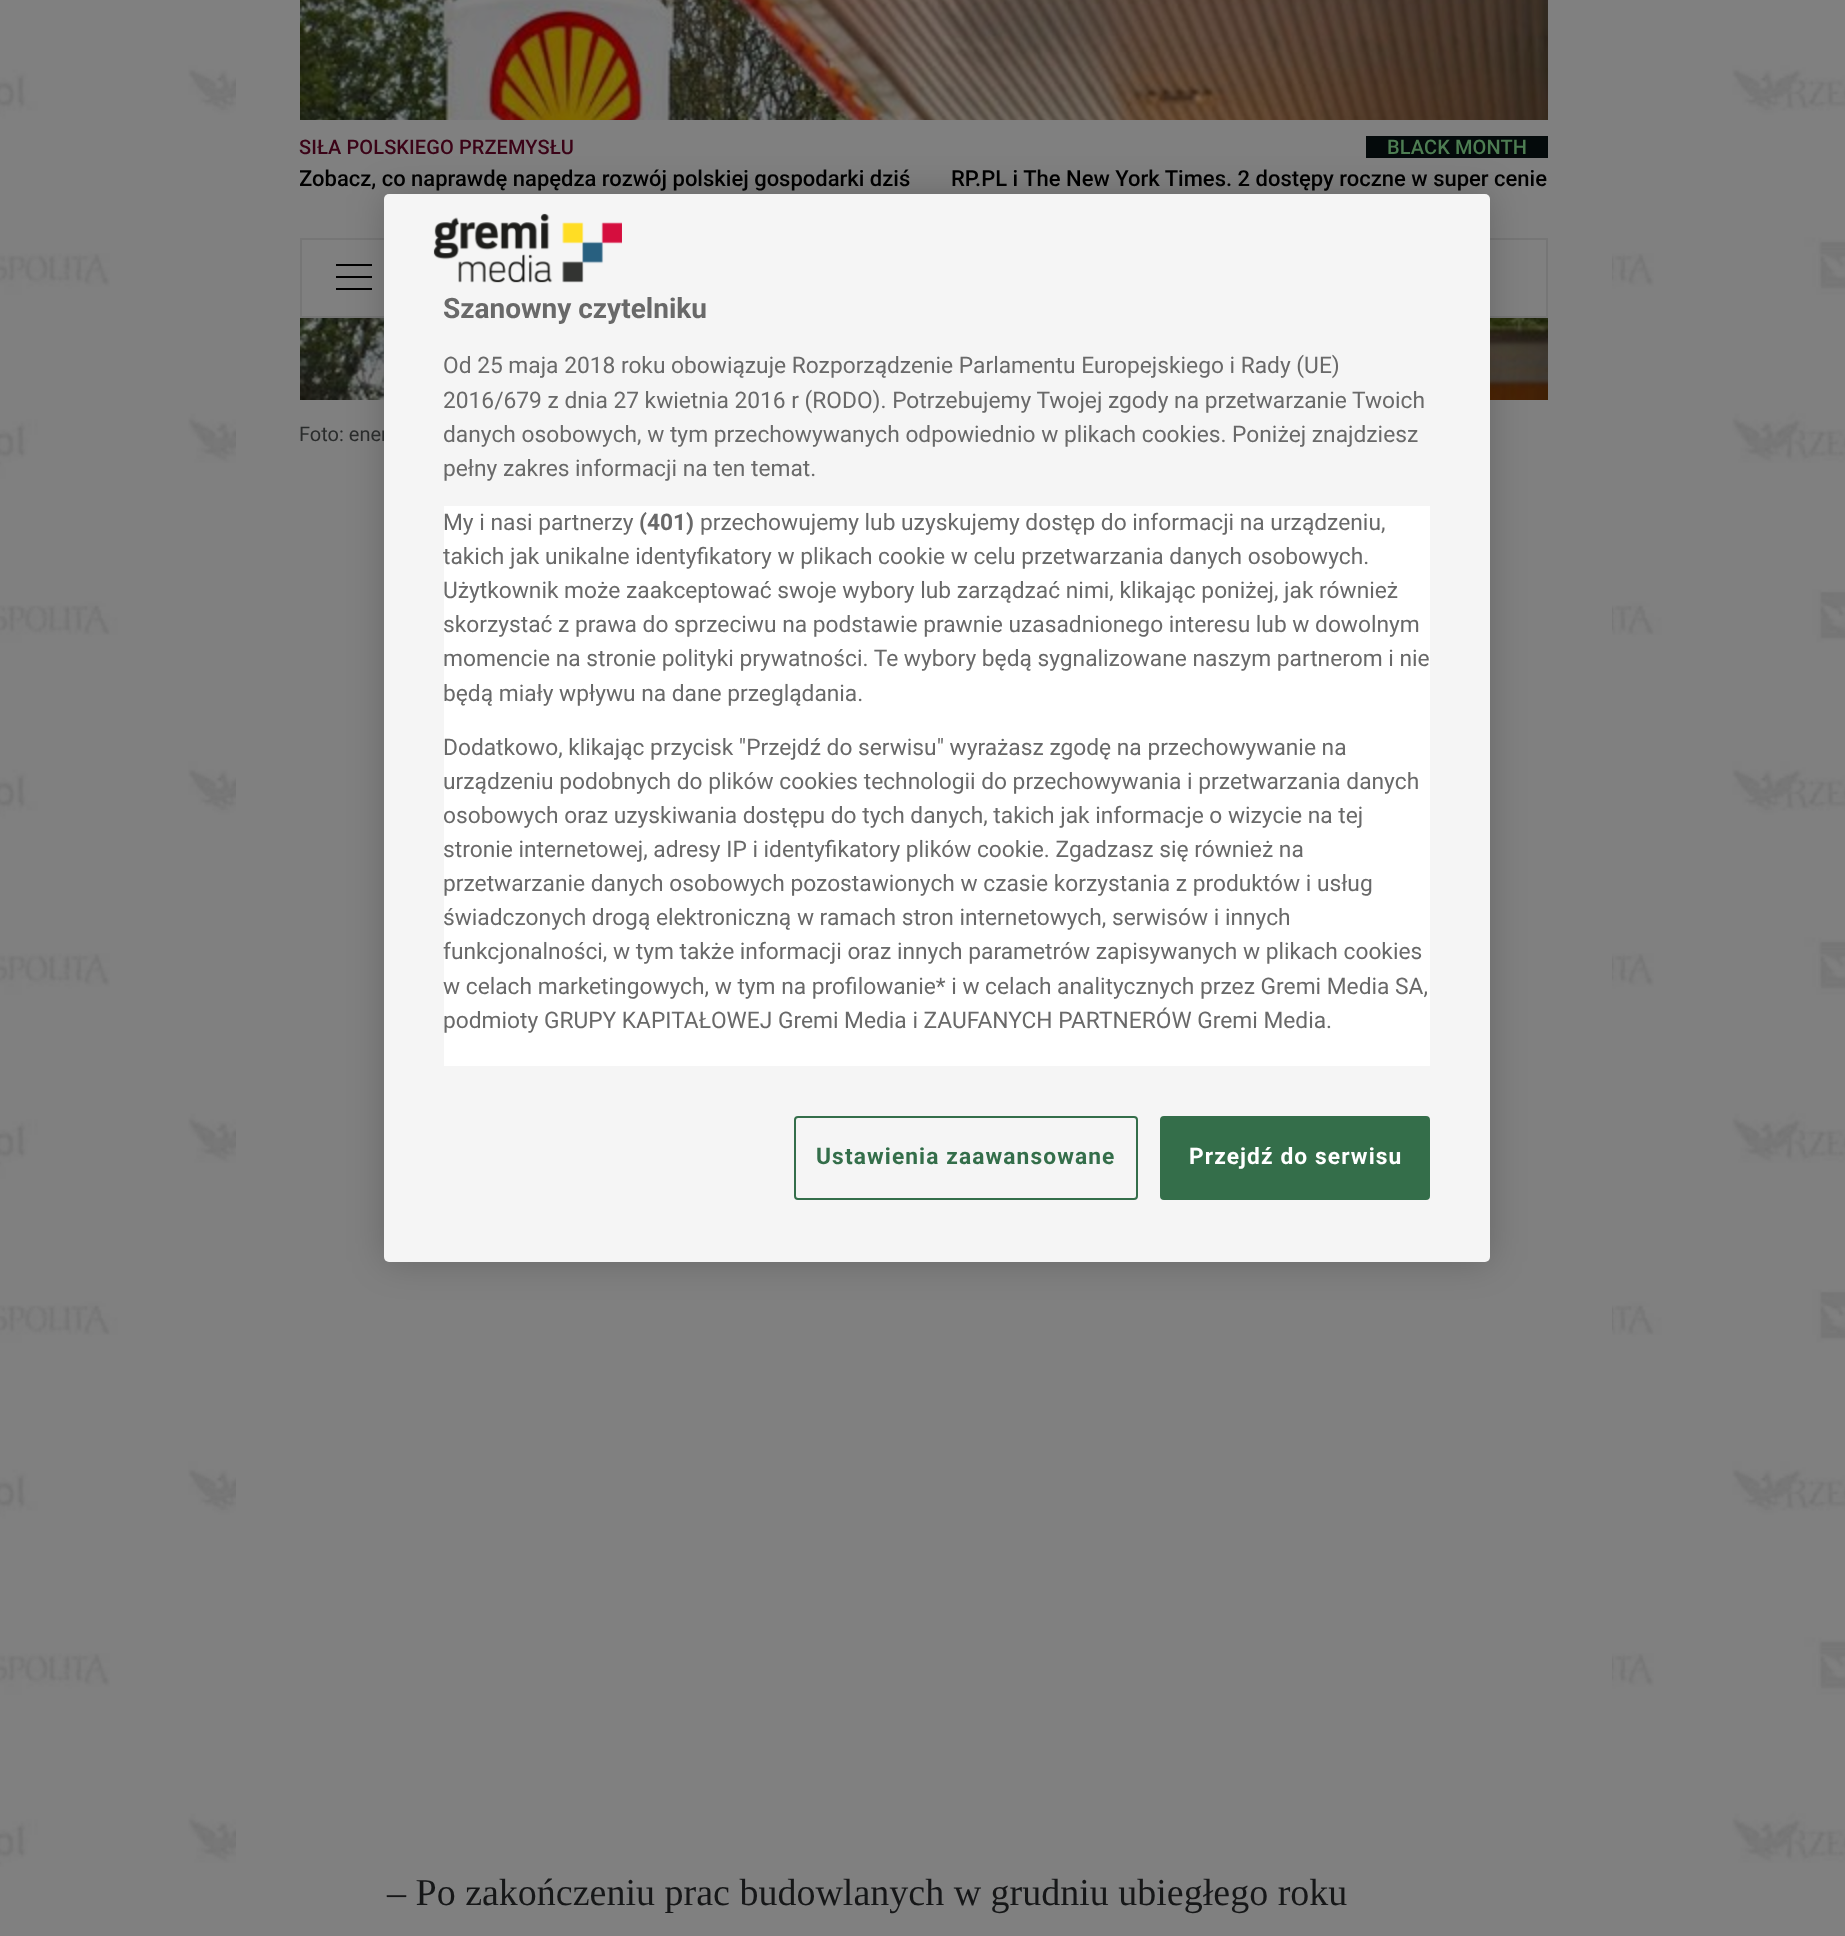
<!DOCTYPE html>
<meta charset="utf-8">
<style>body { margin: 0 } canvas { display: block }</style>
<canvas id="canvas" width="1845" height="1936"></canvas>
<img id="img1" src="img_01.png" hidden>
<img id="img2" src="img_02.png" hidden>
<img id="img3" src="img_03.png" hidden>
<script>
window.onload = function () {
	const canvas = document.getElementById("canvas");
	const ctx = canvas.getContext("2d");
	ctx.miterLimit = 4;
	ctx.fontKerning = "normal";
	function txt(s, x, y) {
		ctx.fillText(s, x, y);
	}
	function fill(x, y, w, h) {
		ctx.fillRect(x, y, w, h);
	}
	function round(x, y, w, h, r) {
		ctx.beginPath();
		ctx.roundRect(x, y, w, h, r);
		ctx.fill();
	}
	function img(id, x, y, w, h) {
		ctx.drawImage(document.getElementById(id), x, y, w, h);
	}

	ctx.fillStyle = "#808080";
	fill(0, 0, 1845, 1936);
	img("img1", 0, 65, 1845, 1802);
	fill(236, 65, 1376, 1802);
	img("img2", 300, 0, 1248, 400);
	fill(300, 120, 1248, 198);
	ctx.fillStyle = "#040A0B";
	fill(1366, 136, 182, 22);
	ctx.fillStyle = "#767676";
	fill(300, 238, 1248, 2);
	fill(300, 316, 1248, 2);
	fill(1546, 240, 2, 76);
	fill(300, 240, 2, 76);
	ctx.fillStyle = "#000000";
	fill(336, 264, 36, 2);
	fill(336, 276, 36, 2);
	fill(336, 288, 36, 2);
	ctx.fillStyle = "rgba(0, 0, 0, 0.2)";
	ctx.filter = "blur(18px)";
	ctx.beginPath();
	ctx.roundRect(384, 194, 1106, 1068, 5);
	ctx.fill();
	ctx.filter = "none";
	ctx.letterSpacing = "0.1px";
	ctx.font = "500 20px Roboto";
	ctx.fillStyle = "#3B0317";
	txt("SIŁA POLSKIEGO PRZEMYSŁU", 299, 154);
	ctx.save();
	ctx.beginPath();
	ctx.rect(300, 166, 624, 28);
	ctx.clip();
	ctx.letterSpacing = "0px";
	ctx.font = "500 22px Roboto";
	ctx.fillStyle = "#000000";
	txt("Zobacz, co naprawdę napędza rozwój polskiej gospodarki dziś", 299, 186);
	ctx.restore();
	ctx.fillStyle = "#4D7D52";
	txt("BLACK MONTH", 1387, 154);
	ctx.letterSpacing = "0px";
	ctx.font = "500 22px Roboto";
	ctx.fillStyle = "#000000";
	txt("RP.PL i The New York Times. 2 dostępy roczne w super cenie", 951, 186);
	ctx.font = "20px Roboto";
	ctx.fillStyle = "#2A2C2C";
	txt("Foto: ener", 299, 441);
	ctx.font = "38px Liberation Serif";
	ctx.fillStyle = "#161718";
	txt("– Po zakończeniu prac budowlanych w grudniu ubiegłego roku", 387, 1905);
	ctx.fillStyle = "#F5F5F5";
	round(384, 194, 1106, 1068, 5);
	img("img3", 433, 213, 189, 70);
	ctx.font = "bold 28px Roboto";
	ctx.fillStyle = "#696969";
	txt("Szanowny czytelniku", 443, 318);
	ctx.font = "22.75px Roboto";
	txt("Od 25 maja 2018 roku obowiązuje Rozporządzenie Parlamentu Europejskiego i Rady (UE)", 443, 373);
	txt("2016/679 z dnia 27 kwietnia 2016 r (RODO). Potrzebujemy Twojej zgody na przetwarzanie Twoich", 443, 408);
	txt("danych osobowych, w tym przechowywanych odpowiednio w plikach cookies. Poniżej znajdziesz", 443, 442);
	txt("pełny zakres informacji na ten temat.", 443, 476);
	ctx.fillStyle = "#FFFFFF";
	fill(444, 506, 986, 560);
	ctx.fillStyle = "#696969";
	txt("My i nasi partnerzy", 443, 530);
	ctx.font = "bold 22.75px Roboto";
	txt("(401)", 639, 530);
	ctx.font = "22.75px Roboto";
	txt("przechowujemy lub uzyskujemy dostęp do informacji na urządzeniu,", 700, 530);
	txt("takich jak unikalne identyfikatory w plikach cookie w celu przetwarzania danych osobowych.", 443, 564);
	txt("Użytkownik może zaakceptować swoje wybory lub zarządzać nimi, klikając poniżej, jak również", 443, 598);
	txt("skorzystać z prawa do sprzeciwu na podstawie prawnie uzasadnionego interesu lub w dowolnym", 443, 632);
	txt("momencie na stronie polityki prywatności. Te wybory będą sygnalizowane naszym partnerom i nie", 443, 666);
	txt("będą miały wpływu na dane przeglądania.", 443, 701);
	txt("Dodatkowo, klikając przycisk \"Przejdź do serwisu\" wyrażasz zgodę na przechowywanie na", 443, 755);
	txt("urządzeniu podobnych do plików cookies technologii do przechowywania i przetwarzania danych", 443, 789);
	txt("osobowych oraz uzyskiwania dostępu do tych danych, takich jak informacje o wizycie na tej", 443, 823);
	txt("stronie internetowej, adresy IP i identyfikatory plików cookie. Zgadzasz się również na", 443, 857);
	txt("przetwarzanie danych osobowych pozostawionych w czasie korzystania z produktów i usług", 443, 891);
	txt("świadczonych drogą elektroniczną w ramach stron internetowych, serwisów i innych", 443, 925);
	txt("funkcjonalności, w tym także informacji oraz innych parametrów zapisywanych w plikach cookies", 443, 959);
	txt("w celach marketingowych, w tym na profilowanie* i w celach analitycznych przez Gremi Media SA,", 443, 994);
	txt("podmioty GRUPY KAPITAŁOWEJ Gremi Media i ZAUFANYCH PARTNERÓW Gremi Media.", 443, 1028);
	ctx.beginPath();
	ctx.roundRect(795, 1117, 342, 82, 3);
	ctx.strokeStyle = "#346E4A";
	ctx.lineWidth = 2;
	ctx.stroke();
	ctx.letterSpacing = "1.1px";
	ctx.font = "bold 22.75px Roboto";
	ctx.fillStyle = "#346E4A";
	txt("Ustawienia zaawansowane", 816, 1164);
	ctx.beginPath();
	ctx.roundRect(1161, 1117, 268, 82, 3);
	ctx.fill();
	ctx.stroke();
	ctx.fillStyle = "#FFFFFF";
	txt("Przejdź do serwisu", 1189, 1164);
};
</script>
